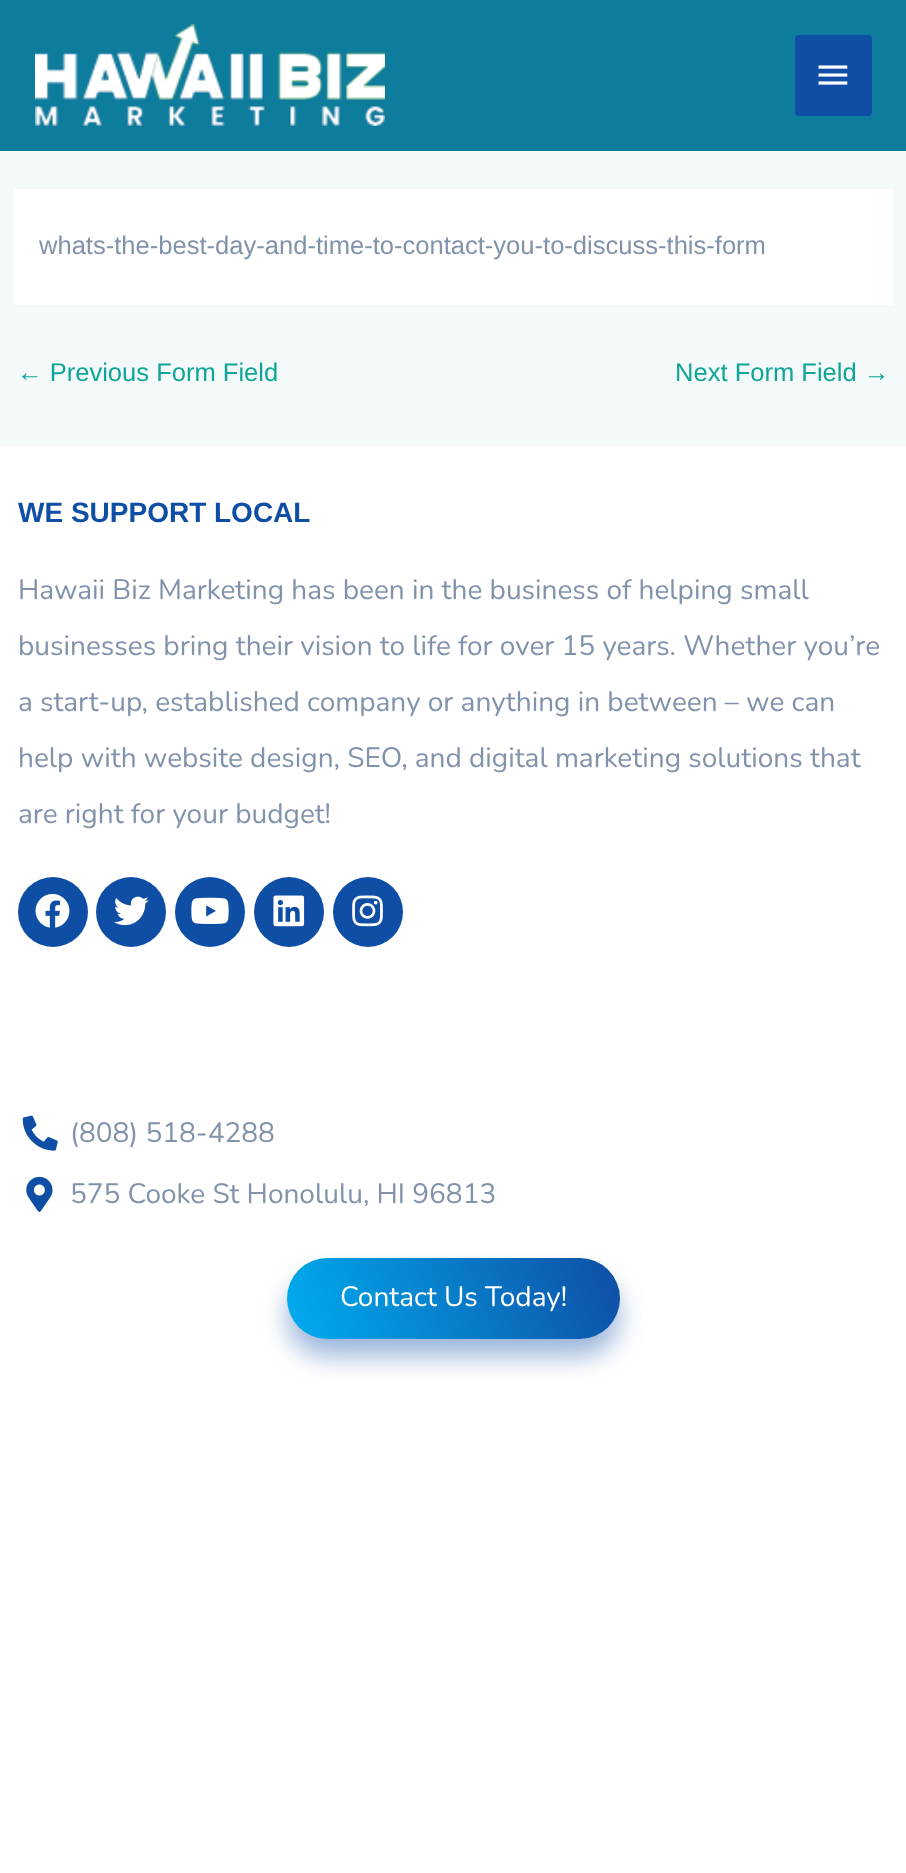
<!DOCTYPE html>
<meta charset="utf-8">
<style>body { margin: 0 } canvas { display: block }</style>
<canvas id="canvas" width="906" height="1873"></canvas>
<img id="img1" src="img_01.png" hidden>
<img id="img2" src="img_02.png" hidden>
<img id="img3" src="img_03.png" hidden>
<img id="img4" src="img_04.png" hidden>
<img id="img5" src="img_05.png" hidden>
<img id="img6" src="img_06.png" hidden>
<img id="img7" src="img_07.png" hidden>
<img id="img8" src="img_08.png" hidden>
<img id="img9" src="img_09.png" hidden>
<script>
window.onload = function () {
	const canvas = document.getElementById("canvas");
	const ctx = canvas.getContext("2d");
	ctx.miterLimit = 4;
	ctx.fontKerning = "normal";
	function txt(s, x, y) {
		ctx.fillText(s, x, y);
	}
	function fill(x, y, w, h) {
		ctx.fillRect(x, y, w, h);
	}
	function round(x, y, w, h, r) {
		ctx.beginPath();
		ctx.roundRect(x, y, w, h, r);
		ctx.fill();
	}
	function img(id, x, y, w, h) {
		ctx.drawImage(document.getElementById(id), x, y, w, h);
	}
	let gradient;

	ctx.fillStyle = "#F4F9F9";
	fill(0, 0, 906, 1873);
	ctx.fillStyle = "#0E7D9D";
	fill(0, 0, 906, 151);
	img("img1", 35, 24, 350, 102);
	ctx.fillStyle = "#0F4EA5";
	round(795, 35, 77, 81, 4);
	img("img2", 818, 65, 30, 20);
	ctx.fillStyle = "#FFFFFF";
	fill(14, 189, 879, 116);
	fill(0, 446, 906, 1427);
	ctx.fillStyle = "#0F4EA5";
	ctx.beginPath();
	ctx.arc(53, 912, 35, 0, Math.PI * 2);
	ctx.fill();
	img("img3", 35, 893, 35, 35);
	ctx.beginPath();
	ctx.arc(131, 912, 35, 0, Math.PI * 2);
	ctx.fill();
	img("img4", 114, 896, 35, 30);
	ctx.beginPath();
	ctx.arc(210, 912, 35, 0, Math.PI * 2);
	ctx.fill();
	img("img5", 191, 897, 38, 27);
	ctx.beginPath();
	ctx.arc(289, 912, 35, 0, Math.PI * 2);
	ctx.fill();
	img("img6", 273, 895, 32, 32);
	ctx.beginPath();
	ctx.arc(368, 912, 35, 0, Math.PI * 2);
	ctx.fill();
	img("img7", 352, 895, 31, 32);
	img("img8", 22, 1115, 36, 36);
	img("img9", 26, 1176, 27, 36);
	ctx.fillStyle = "rgba(15, 78, 165, 0.42)";
	ctx.filter = "blur(13px)";
	ctx.beginPath();
	ctx.roundRect(287, 1276, 333, 80, 40);
	ctx.fill();
	ctx.filter = "none";
	gradient = ctx.createLinearGradient(613, 1240, 294, 1357);
	gradient.addColorStop(0, "#0F4EA5");
	gradient.addColorStop(1, "#00ADEF");
	ctx.fillStyle = gradient;
	round(287, 1258, 333, 81, 40.5);
	ctx.font = "25.55px Liberation Sans";
	ctx.fillStyle = "#8192AA";
	txt("whats-the-best-day-and-time-to-contact-you-to-discuss-this-form", 39, 254);
	ctx.fillStyle = "#0FA597";
	txt("← Previous Form Field", 17, 381);
	txt("Next Form Field →", 675, 381);
	ctx.font = "bold 28px Liberation Sans";
	ctx.fillStyle = "#0F4EA5";
	txt("WE SUPPORT LOCAL", 18, 522);
	ctx.font = "28px Nunito";
	ctx.fillStyle = "#8192AA";
	txt("Hawaii Biz Marketing has been in the business of helping small", 18, 599);
	txt("businesses bring their vision to life for over 15 years. Whether you’re", 18, 655);
	txt("a start-up, established company or anything in between – we can", 18, 711);
	txt("help with website design, SEO, and digital marketing solutions that", 18, 767);
	txt("are right for your budget!", 18, 823);
	txt("(808) 518-4288", 70, 1142);
	txt("575 Cooke St Honolulu, HI 96813", 70, 1203);
	ctx.fillStyle = "#FFFFFF";
	txt("Contact Us Today!", 340, 1306);
};
</script>
